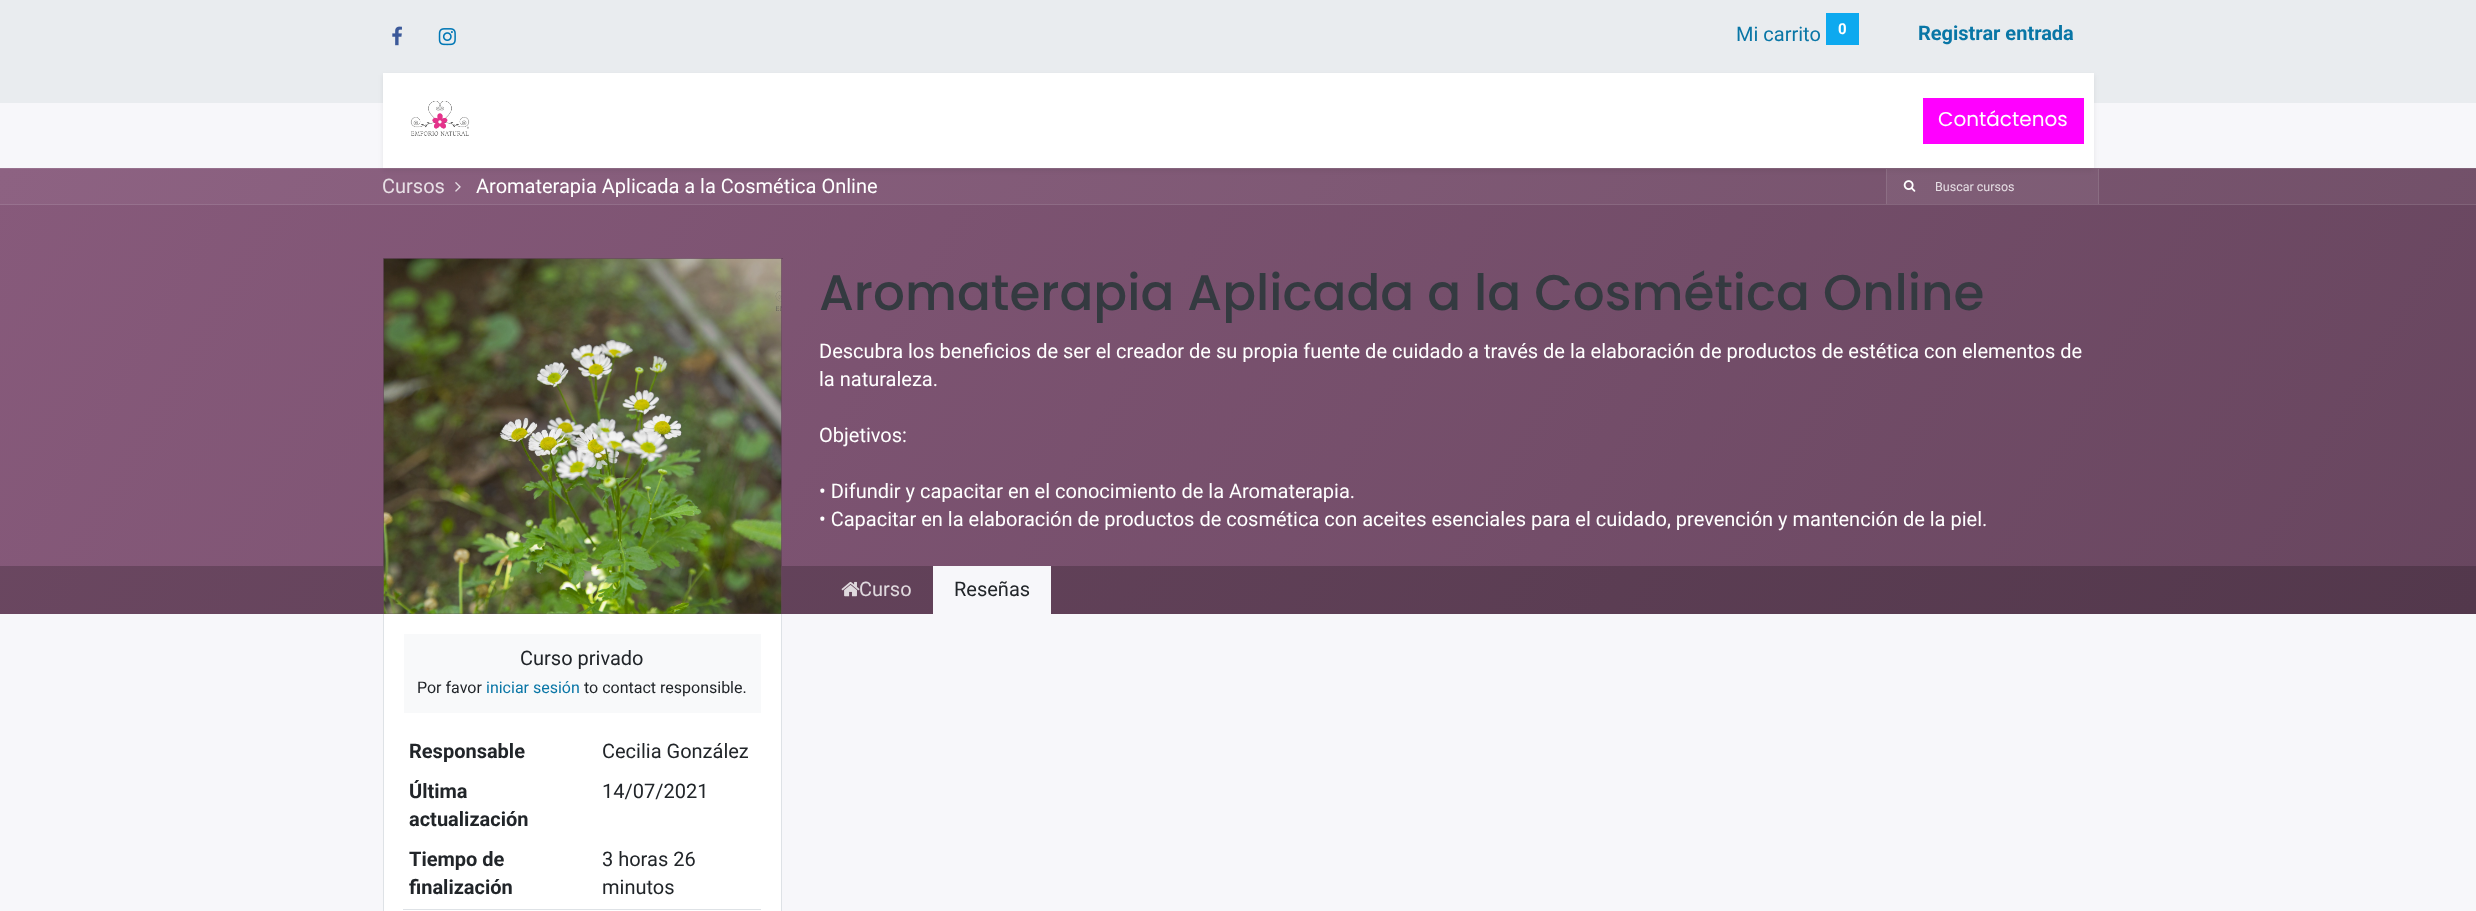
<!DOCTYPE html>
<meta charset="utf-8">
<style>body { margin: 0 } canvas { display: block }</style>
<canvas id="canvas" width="2476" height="911"></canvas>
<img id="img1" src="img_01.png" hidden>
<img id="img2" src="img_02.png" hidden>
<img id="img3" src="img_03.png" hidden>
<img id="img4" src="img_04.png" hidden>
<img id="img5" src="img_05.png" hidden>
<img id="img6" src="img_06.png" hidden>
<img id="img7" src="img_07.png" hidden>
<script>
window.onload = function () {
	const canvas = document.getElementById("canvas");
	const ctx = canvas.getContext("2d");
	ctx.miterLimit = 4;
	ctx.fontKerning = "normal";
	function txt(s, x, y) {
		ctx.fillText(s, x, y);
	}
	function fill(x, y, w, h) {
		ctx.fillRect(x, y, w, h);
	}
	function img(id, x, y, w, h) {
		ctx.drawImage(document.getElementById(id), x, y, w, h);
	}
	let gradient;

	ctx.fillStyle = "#F7F7FA";
	fill(0, 0, 2476, 911);
	ctx.fillStyle = "#E9ECEF";
	fill(0, 0, 2476, 103);
	img("img1", 392, 26, 10, 20);
	img("img2", 438, 28, 18, 18);
	ctx.fillStyle = "#0DA9EF";
	fill(1826, 13, 33, 32);
	gradient = ctx.createLinearGradient(213, -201, 2263, 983);
	gradient.addColorStop(0, "#8D6282");
	gradient.addColorStop(1, "#704F67");
	ctx.fillStyle = gradient;
	fill(0, 169, 2476, 35);
	gradient = ctx.createLinearGradient(213, -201, 2263, 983);
	gradient.addColorStop(0, "#936A88");
	gradient.addColorStop(1, "#77586F");
	ctx.fillStyle = gradient;
	fill(1887, 169, 211, 35);
	gradient = ctx.createLinearGradient(213, -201, 2263, 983);
	gradient.addColorStop(0, "#98728F");
	gradient.addColorStop(1, "#7E6176");
	ctx.fillStyle = gradient;
	fill(0, 168, 2476, 1);
	ctx.fillStyle = "#8A6D82";
	fill(2098, 169, 1, 35);
	ctx.fillStyle = "#8C6E84";
	fill(1886, 169, 1, 35);
	ctx.fillStyle = "rgba(0, 0, 0, 0.07)";
	ctx.filter = "blur(2.5px)";
	ctx.beginPath();
	ctx.rect(383, 75, 1711, 95);
	ctx.fill();
	ctx.filter = "none";
	ctx.fillStyle = "#FFFFFF";
	fill(383, 73, 1711, 95);
	img("img3", 410, 101, 60, 35);
	ctx.fillStyle = "#FF00FF";
	fill(1923, 98, 161, 46);
	gradient = ctx.createLinearGradient(213, -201, 2263, 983);
	gradient.addColorStop(0, "#875A7B");
	gradient.addColorStop(1, "#68465F");
	ctx.fillStyle = gradient;
	fill(0, 205, 2476, 361);
	gradient = ctx.createLinearGradient(213, -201, 2263, 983);
	gradient.addColorStop(0, "#98728F");
	gradient.addColorStop(1, "#7E6176");
	ctx.fillStyle = gradient;
	fill(0, 204, 2476, 1);
	gradient = ctx.createLinearGradient(213, -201, 2263, 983);
	gradient.addColorStop(0, "#6C4862");
	gradient.addColorStop(1, "#53384C");
	ctx.fillStyle = gradient;
	fill(0, 566, 2476, 48);
	img("img4", 455, 182, 6, 10);
	img("img5", 1903, 180, 13, 12);
	ctx.fillStyle = "#68465F";
	fill(383, 258, 400, 1);
	fill(781, 258, 1, 356);
	fill(383, 258, 1, 308);
	img("img6", 383, 258, 399, 356);
	img("img7", 841, 581, 19, 16);
	ctx.fillStyle = "#F7F7FA";
	fill(933, 566, 118, 48);
	ctx.fillStyle = "#FFFFFF";
	fill(384, 614, 397, 297);
	ctx.fillStyle = "#DEE2E6";
	fill(781, 614, 1, 297);
	fill(383, 614, 1, 297);
	ctx.fillStyle = "#F8F9FA";
	fill(404, 634, 357, 79);
	ctx.fillStyle = "#DEE2E6";
	fill(403, 909, 358, 1);
	ctx.font = "20px Roboto";
	ctx.fillStyle = "#0976A6";
	txt("Mi carrito", 1736, 41);
	ctx.font = "bold 15px Roboto";
	ctx.fillStyle = "#FFFFFF";
	txt("0", 1838, 34);
	ctx.font = "bold 20px Roboto";
	ctx.fillStyle = "#0976A6";
	txt("Registrar entrada", 1918, 40);
	ctx.font = "20px Poppins";
	ctx.fillStyle = "#FFFFFF";
	txt("Contáctenos", 1938, 126);
	ctx.font = "20px Roboto";
	ctx.fillStyle = "#E7DFE5";
	txt("Cursos", 382, 193);
	ctx.fillStyle = "#FFFFFF";
	txt("Aromaterapia Aplicada a la Cosmética Online", 476, 193);
	ctx.font = "12.5px Roboto";
	ctx.fillStyle = "#E7DFE5";
	txt("Buscar cursos", 1935, 191);
	ctx.font = "500 50px Poppins";
	ctx.fillStyle = "#343A40";
	txt("Aromaterapia Aplicada a la Cosmética Online", 819, 310);
	ctx.font = "20px Roboto";
	ctx.fillStyle = "#FFFFFF";
	txt("Descubra los beneficios de ser el creador de su propia fuente de cuidado a través de la elaboración de productos de estética con elementos de", 819, 358);
	txt("la naturaleza.", 819, 386);
	txt("Objetivos:", 819, 442);
	txt("• Difundir y capacitar en el conocimiento de la Aromaterapia.", 819, 498);
	txt("• Capacitar en la elaboración de productos de cosmética con aceites esenciales para el cuidado, prevención y mantención de la piel.", 819, 526);
	ctx.fillStyle = "#E0D9DE";
	txt("Curso", 859, 596);
	ctx.fillStyle = "#212529";
	txt("Reseñas", 954, 596);
	txt("Curso privado", 520, 665);
	ctx.font = "16px Roboto";
	txt("Por favor", 417, 693);
	ctx.fillStyle = "#0976A6";
	txt("iniciar sesión", 486, 693);
	ctx.fillStyle = "#212529";
	txt("to contact responsible.", 584, 693);
	ctx.font = "bold 20px Roboto";
	txt("Responsable", 409, 758);
	ctx.font = "20px Roboto";
	txt("Cecilia González", 602, 758);
	ctx.font = "bold 20px Roboto";
	txt("Última", 409, 798);
	txt("actualización", 409, 826);
	ctx.font = "20px Roboto";
	txt("14/07/2021", 602, 798);
	ctx.font = "bold 20px Roboto";
	txt("Tiempo de", 409, 866);
	txt("finalización", 409, 894);
	ctx.font = "20px Roboto";
	txt("3 horas 26", 602, 866);
	txt("minutos", 602, 894);
};
</script>
